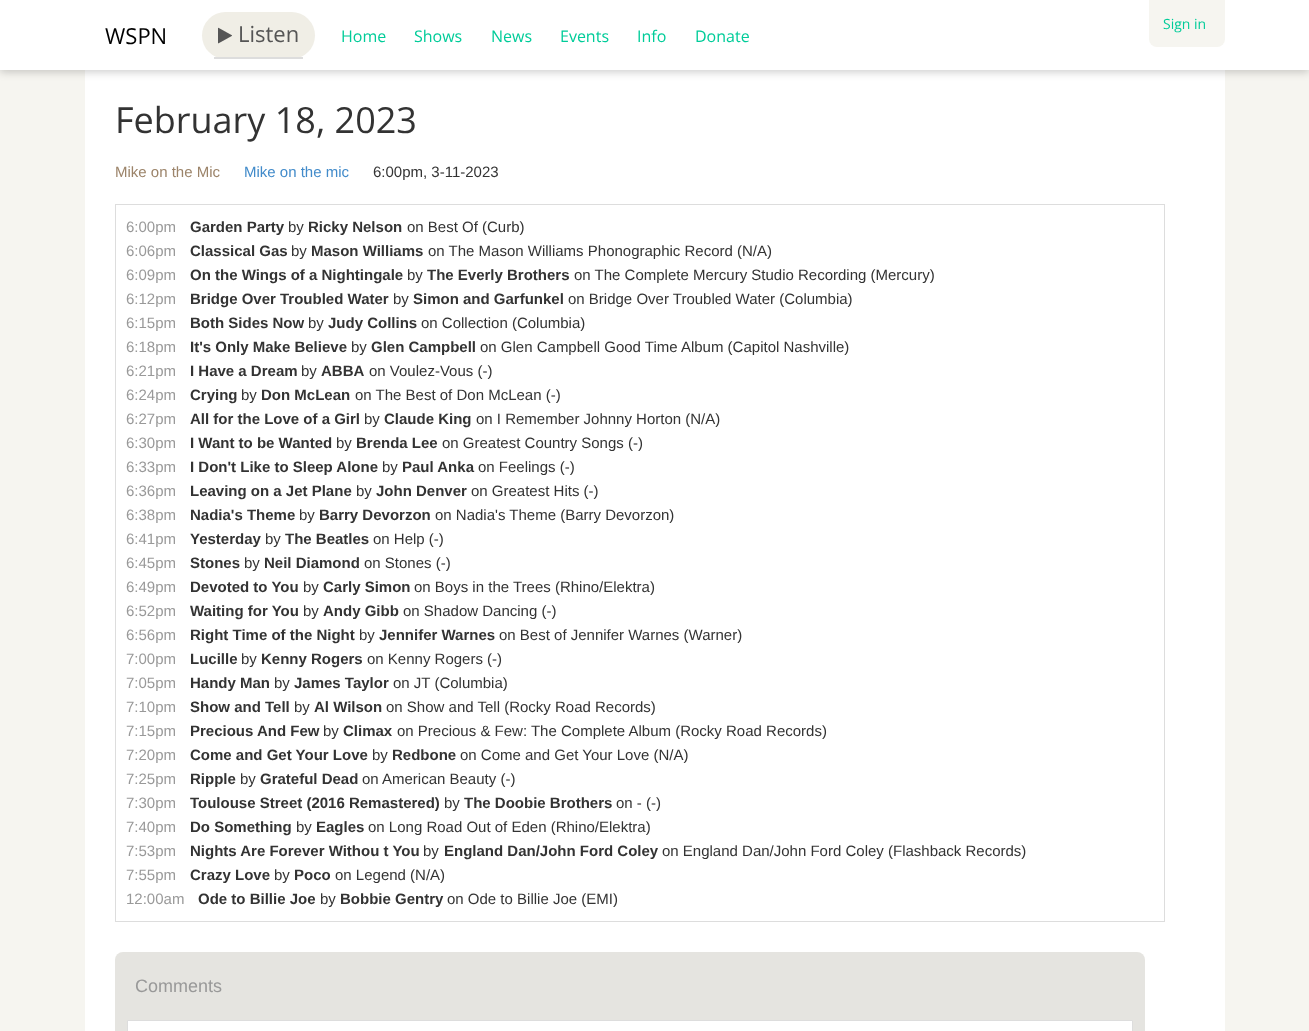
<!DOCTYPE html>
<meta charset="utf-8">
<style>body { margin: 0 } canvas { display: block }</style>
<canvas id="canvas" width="1309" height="1031"></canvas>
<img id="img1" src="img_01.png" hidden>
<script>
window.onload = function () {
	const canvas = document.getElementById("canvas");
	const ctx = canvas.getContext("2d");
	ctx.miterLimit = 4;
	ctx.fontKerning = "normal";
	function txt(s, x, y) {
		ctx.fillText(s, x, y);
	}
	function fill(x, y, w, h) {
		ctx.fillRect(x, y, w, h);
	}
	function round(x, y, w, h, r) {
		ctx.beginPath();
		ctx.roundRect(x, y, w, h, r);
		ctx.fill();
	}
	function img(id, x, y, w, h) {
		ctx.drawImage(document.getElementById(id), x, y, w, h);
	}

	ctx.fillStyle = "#F6F5F0";
	fill(0, 0, 1309, 1031);
	ctx.fillStyle = "#FFFFFF";
	fill(85, 70, 1140, 961);
	ctx.fillStyle = "rgba(0, 0, 0, 0.2)";
	ctx.filter = "blur(4px)";
	ctx.beginPath();
	ctx.rect(0, 2, 1309, 70);
	ctx.fill();
	ctx.filter = "none";
	ctx.fillStyle = "#FFFFFF";
	fill(0, 0, 1309, 70);
	ctx.fillStyle = "#F0EEE6";
	round(202, 12, 113, 47, 23.5);
	ctx.fillStyle = "#DDDDDD";
	fill(214, 57, 89, 2);
	img("img1", 218, 27, 14, 17);
	ctx.fillStyle = "#F6F5F0";
	ctx.beginPath();
	ctx.roundRect(1149, 0, 76, 47, [0, 0, 8, 8]);
	ctx.fill();
	ctx.strokeStyle = "#DDDDDD";
	ctx.strokeRect(115.5, 204.5, 1049, 717);
	ctx.fillStyle = "#E5E4E0";
	round(115, 952, 1030, 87, 8);
	ctx.fillStyle = "#FFFFFF";
	ctx.beginPath();
	ctx.rect(127.5, 1020.5, 1005, 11);
	ctx.fill();
	ctx.stroke();
	ctx.font = "22px Open Sans";
	ctx.fillStyle = "#000000";
	txt("WSPN", 105, 44);
	ctx.fillStyle = "#555555";
	txt("Listen", 238, 42);
	ctx.font = "16px Open Sans";
	ctx.fillStyle = "#00CC99";
	txt("Home", 341, 42);
	txt("Shows", 414, 42);
	txt("News", 491, 42);
	txt("Events", 560, 42);
	txt("Info", 637, 42);
	txt("Donate", 695, 42);
	ctx.font = "14px Open Sans";
	txt("Sign in", 1163, 29);
	ctx.font = "36px Open Sans";
	ctx.fillStyle = "#333333";
	txt("February 18, 2023", 115, 133);
	ctx.font = "15px Liberation Sans";
	ctx.fillStyle = "#9C846A";
	txt("Mike on the Mic", 115, 177);
	ctx.fillStyle = "#428BCA";
	txt("Mike on the mic", 244, 177);
	ctx.fillStyle = "#333333";
	txt("6:00pm, 3-11-2023", 373, 177);
	ctx.fillStyle = "#999999";
	txt("6:00pm", 126, 232);
	ctx.font = "bold 15px Liberation Sans";
	ctx.fillStyle = "#333333";
	txt("Garden Party", 190, 232);
	ctx.font = "15px Liberation Sans";
	txt("by", 288, 232);
	ctx.font = "bold 15px Liberation Sans";
	txt("Ricky Nelson", 308, 232);
	ctx.font = "15px Liberation Sans";
	txt("on Best Of (Curb)", 407, 232);
	ctx.fillStyle = "#999999";
	txt("6:06pm", 126, 256);
	ctx.font = "bold 15px Liberation Sans";
	ctx.fillStyle = "#333333";
	txt("Classical Gas", 190, 256);
	ctx.font = "15px Liberation Sans";
	txt("by", 291, 256);
	ctx.font = "bold 15px Liberation Sans";
	txt("Mason Williams", 311, 256);
	ctx.font = "15px Liberation Sans";
	txt("on The Mason Williams Phonographic Record (N/A)", 428, 256);
	ctx.fillStyle = "#999999";
	txt("6:09pm", 126, 280);
	ctx.font = "bold 15px Liberation Sans";
	ctx.fillStyle = "#333333";
	txt("On the Wings of a Nightingale", 190, 280);
	ctx.font = "15px Liberation Sans";
	txt("by", 407, 280);
	ctx.font = "bold 15px Liberation Sans";
	txt("The Everly Brothers", 427, 280);
	ctx.font = "15px Liberation Sans";
	txt("on The Complete Mercury Studio Recording (Mercury)", 574, 280);
	ctx.fillStyle = "#999999";
	txt("6:12pm", 126, 304);
	ctx.font = "bold 15px Liberation Sans";
	ctx.fillStyle = "#333333";
	txt("Bridge Over Troubled Water", 190, 304);
	ctx.font = "15px Liberation Sans";
	txt("by", 393, 304);
	ctx.font = "bold 15px Liberation Sans";
	txt("Simon and Garfunkel", 413, 304);
	ctx.font = "15px Liberation Sans";
	txt("on Bridge Over Troubled Water (Columbia)", 568, 304);
	ctx.fillStyle = "#999999";
	txt("6:15pm", 126, 328);
	ctx.font = "bold 15px Liberation Sans";
	ctx.fillStyle = "#333333";
	txt("Both Sides Now", 190, 328);
	ctx.font = "15px Liberation Sans";
	txt("by", 308, 328);
	ctx.font = "bold 15px Liberation Sans";
	txt("Judy Collins", 328, 328);
	ctx.font = "15px Liberation Sans";
	txt("on Collection (Columbia)", 421, 328);
	ctx.fillStyle = "#999999";
	txt("6:18pm", 126, 352);
	ctx.font = "bold 15px Liberation Sans";
	ctx.fillStyle = "#333333";
	txt("It's Only Make Believe", 190, 352);
	ctx.font = "15px Liberation Sans";
	txt("by", 351, 352);
	ctx.font = "bold 15px Liberation Sans";
	txt("Glen Campbell", 371, 352);
	ctx.font = "15px Liberation Sans";
	txt("on Glen Campbell Good Time Album (Capitol Nashville)", 480, 352);
	ctx.fillStyle = "#999999";
	txt("6:21pm", 126, 376);
	ctx.font = "bold 15px Liberation Sans";
	ctx.fillStyle = "#333333";
	txt("I Have a Dream", 190, 376);
	ctx.font = "15px Liberation Sans";
	txt("by", 301, 376);
	ctx.font = "bold 15px Liberation Sans";
	txt("ABBA", 321, 376);
	ctx.font = "15px Liberation Sans";
	txt("on Voulez-Vous (-)", 369, 376);
	ctx.fillStyle = "#999999";
	txt("6:24pm", 126, 400);
	ctx.font = "bold 15px Liberation Sans";
	ctx.fillStyle = "#333333";
	txt("Crying", 190, 400);
	ctx.font = "15px Liberation Sans";
	txt("by", 241, 400);
	ctx.font = "bold 15px Liberation Sans";
	txt("Don McLean", 261, 400);
	ctx.font = "15px Liberation Sans";
	txt("on The Best of Don McLean (-)", 355, 400);
	ctx.fillStyle = "#999999";
	txt("6:27pm", 126, 424);
	ctx.font = "bold 15px Liberation Sans";
	ctx.fillStyle = "#333333";
	txt("All for the Love of a Girl", 190, 424);
	ctx.font = "15px Liberation Sans";
	txt("by", 364, 424);
	ctx.font = "bold 15px Liberation Sans";
	txt("Claude King", 384, 424);
	ctx.font = "15px Liberation Sans";
	txt("on I Remember Johnny Horton (N/A)", 476, 424);
	ctx.fillStyle = "#999999";
	txt("6:30pm", 126, 448);
	ctx.font = "bold 15px Liberation Sans";
	ctx.fillStyle = "#333333";
	txt("I Want to be Wanted", 190, 448);
	ctx.font = "15px Liberation Sans";
	txt("by", 336, 448);
	ctx.font = "bold 15px Liberation Sans";
	txt("Brenda Lee", 356, 448);
	ctx.font = "15px Liberation Sans";
	txt("on Greatest Country Songs (-)", 442, 448);
	ctx.fillStyle = "#999999";
	txt("6:33pm", 126, 472);
	ctx.font = "bold 15px Liberation Sans";
	ctx.fillStyle = "#333333";
	txt("I Don't Like to Sleep Alone", 190, 472);
	ctx.font = "15px Liberation Sans";
	txt("by", 382, 472);
	ctx.font = "bold 15px Liberation Sans";
	txt("Paul Anka", 402, 472);
	ctx.font = "15px Liberation Sans";
	txt("on Feelings (-)", 478, 472);
	ctx.fillStyle = "#999999";
	txt("6:36pm", 126, 496);
	ctx.font = "bold 15px Liberation Sans";
	ctx.fillStyle = "#333333";
	txt("Leaving on a Jet Plane", 190, 496);
	ctx.font = "15px Liberation Sans";
	txt("by", 356, 496);
	ctx.font = "bold 15px Liberation Sans";
	txt("John Denver", 376, 496);
	ctx.font = "15px Liberation Sans";
	txt("on Greatest Hits (-)", 471, 496);
	ctx.fillStyle = "#999999";
	txt("6:38pm", 126, 520);
	ctx.font = "bold 15px Liberation Sans";
	ctx.fillStyle = "#333333";
	txt("Nadia's Theme", 190, 520);
	ctx.font = "15px Liberation Sans";
	txt("by", 299, 520);
	ctx.font = "bold 15px Liberation Sans";
	txt("Barry Devorzon", 319, 520);
	ctx.font = "15px Liberation Sans";
	txt("on Nadia's Theme (Barry Devorzon)", 435, 520);
	ctx.fillStyle = "#999999";
	txt("6:41pm", 126, 544);
	ctx.font = "bold 15px Liberation Sans";
	ctx.fillStyle = "#333333";
	txt("Yesterday", 190, 544);
	ctx.font = "15px Liberation Sans";
	txt("by", 265, 544);
	ctx.font = "bold 15px Liberation Sans";
	txt("The Beatles", 285, 544);
	ctx.font = "15px Liberation Sans";
	txt("on Help (-)", 373, 544);
	ctx.fillStyle = "#999999";
	txt("6:45pm", 126, 568);
	ctx.font = "bold 15px Liberation Sans";
	ctx.fillStyle = "#333333";
	txt("Stones", 190, 568);
	ctx.font = "15px Liberation Sans";
	txt("by", 244, 568);
	ctx.font = "bold 15px Liberation Sans";
	txt("Neil Diamond", 264, 568);
	ctx.font = "15px Liberation Sans";
	txt("on Stones (-)", 364, 568);
	ctx.fillStyle = "#999999";
	txt("6:49pm", 126, 592);
	ctx.font = "bold 15px Liberation Sans";
	ctx.fillStyle = "#333333";
	txt("Devoted to You", 190, 592);
	ctx.font = "15px Liberation Sans";
	txt("by", 303, 592);
	ctx.font = "bold 15px Liberation Sans";
	txt("Carly Simon", 323, 592);
	ctx.font = "15px Liberation Sans";
	txt("on Boys in the Trees (Rhino/Elektra)", 414, 592);
	ctx.fillStyle = "#999999";
	txt("6:52pm", 126, 616);
	ctx.font = "bold 15px Liberation Sans";
	ctx.fillStyle = "#333333";
	txt("Waiting for You", 190, 616);
	ctx.font = "15px Liberation Sans";
	txt("by", 303, 616);
	ctx.font = "bold 15px Liberation Sans";
	txt("Andy Gibb", 323, 616);
	ctx.font = "15px Liberation Sans";
	txt("on Shadow Dancing (-)", 403, 616);
	ctx.fillStyle = "#999999";
	txt("6:56pm", 126, 640);
	ctx.font = "bold 15px Liberation Sans";
	ctx.fillStyle = "#333333";
	txt("Right Time of the Night", 190, 640);
	ctx.font = "15px Liberation Sans";
	txt("by", 359, 640);
	ctx.font = "bold 15px Liberation Sans";
	txt("Jennifer Warnes", 379, 640);
	ctx.font = "15px Liberation Sans";
	txt("on Best of Jennifer Warnes (Warner)", 499, 640);
	ctx.fillStyle = "#999999";
	txt("7:00pm", 126, 664);
	ctx.font = "bold 15px Liberation Sans";
	ctx.fillStyle = "#333333";
	txt("Lucille", 190, 664);
	ctx.font = "15px Liberation Sans";
	txt("by", 241, 664);
	ctx.font = "bold 15px Liberation Sans";
	txt("Kenny Rogers", 261, 664);
	ctx.font = "15px Liberation Sans";
	txt("on Kenny Rogers (-)", 367, 664);
	ctx.fillStyle = "#999999";
	txt("7:05pm", 126, 688);
	ctx.font = "bold 15px Liberation Sans";
	ctx.fillStyle = "#333333";
	txt("Handy Man", 190, 688);
	ctx.font = "15px Liberation Sans";
	txt("by", 274, 688);
	ctx.font = "bold 15px Liberation Sans";
	txt("James Taylor", 294, 688);
	ctx.font = "15px Liberation Sans";
	txt("on JT (Columbia)", 393, 688);
	ctx.fillStyle = "#999999";
	txt("7:10pm", 126, 712);
	ctx.font = "bold 15px Liberation Sans";
	ctx.fillStyle = "#333333";
	txt("Show and Tell", 190, 712);
	ctx.font = "15px Liberation Sans";
	txt("by", 294, 712);
	ctx.font = "bold 15px Liberation Sans";
	txt("Al Wilson", 314, 712);
	ctx.font = "15px Liberation Sans";
	txt("on Show and Tell (Rocky Road Records)", 386, 712);
	ctx.fillStyle = "#999999";
	txt("7:15pm", 126, 736);
	ctx.font = "bold 15px Liberation Sans";
	ctx.fillStyle = "#333333";
	txt("Precious And Few", 190, 736);
	ctx.font = "15px Liberation Sans";
	txt("by", 323, 736);
	ctx.font = "bold 15px Liberation Sans";
	txt("Climax", 343, 736);
	ctx.font = "15px Liberation Sans";
	txt("on Precious & Few: The Complete Album (Rocky Road Records)", 397, 736);
	ctx.fillStyle = "#999999";
	txt("7:20pm", 126, 760);
	ctx.font = "bold 15px Liberation Sans";
	ctx.fillStyle = "#333333";
	txt("Come and Get Your Love", 190, 760);
	ctx.font = "15px Liberation Sans";
	txt("by", 372, 760);
	ctx.font = "bold 15px Liberation Sans";
	txt("Redbone", 392, 760);
	ctx.font = "15px Liberation Sans";
	txt("on Come and Get Your Love (N/A)", 460, 760);
	ctx.fillStyle = "#999999";
	txt("7:25pm", 126, 784);
	ctx.font = "bold 15px Liberation Sans";
	ctx.fillStyle = "#333333";
	txt("Ripple", 190, 784);
	ctx.font = "15px Liberation Sans";
	txt("by", 240, 784);
	ctx.font = "bold 15px Liberation Sans";
	txt("Grateful Dead", 260, 784);
	ctx.font = "15px Liberation Sans";
	txt("on", 362, 784);
	txt("American Beauty (-)", 382, 784);
	ctx.fillStyle = "#999999";
	txt("7:30pm", 126, 808);
	ctx.font = "bold 15px Liberation Sans";
	ctx.fillStyle = "#333333";
	txt("Toulouse Street (2016 Remastered)", 190, 808);
	ctx.font = "15px Liberation Sans";
	txt("by", 444, 808);
	ctx.font = "bold 15px Liberation Sans";
	txt("The Doobie Brothers", 464, 808);
	ctx.font = "15px Liberation Sans";
	txt("on - (-)", 616, 808);
	ctx.fillStyle = "#999999";
	txt("7:40pm", 126, 832);
	ctx.font = "bold 15px Liberation Sans";
	ctx.fillStyle = "#333333";
	txt("Do Something", 190, 832);
	ctx.font = "15px Liberation Sans";
	txt("by", 296, 832);
	ctx.font = "bold 15px Liberation Sans";
	txt("Eagles", 316, 832);
	ctx.font = "15px Liberation Sans";
	txt("on Long Road Out of Eden (Rhino/Elektra)", 368, 832);
	ctx.fillStyle = "#999999";
	txt("7:53pm", 126, 856);
	ctx.font = "bold 15px Liberation Sans";
	ctx.fillStyle = "#333333";
	txt("Nights Are Forever Withou t You", 190, 856);
	ctx.font = "15px Liberation Sans";
	txt("by", 423, 856);
	ctx.font = "bold 15px Liberation Sans";
	txt("England Dan/John Ford Coley", 444, 856);
	ctx.font = "15px Liberation Sans";
	txt("on England Dan/John Ford Coley (Flashback Records)", 662, 856);
	ctx.fillStyle = "#999999";
	txt("7:55pm", 126, 880);
	ctx.font = "bold 15px Liberation Sans";
	ctx.fillStyle = "#333333";
	txt("Crazy Love", 190, 880);
	ctx.font = "15px Liberation Sans";
	txt("by", 274, 880);
	ctx.font = "bold 15px Liberation Sans";
	txt("Poco", 294, 880);
	ctx.font = "15px Liberation Sans";
	txt("on Legend (N/A)", 335, 880);
	ctx.fillStyle = "#999999";
	txt("12:00am", 126, 904);
	ctx.font = "bold 15px Liberation Sans";
	ctx.fillStyle = "#333333";
	txt("Ode to Billie Joe", 198, 904);
	ctx.font = "15px Liberation Sans";
	txt("by", 320, 904);
	ctx.font = "bold 15px Liberation Sans";
	txt("Bobbie Gentry", 340, 904);
	ctx.font = "15px Liberation Sans";
	txt("on Ode to Billie Joe (EMI)", 447, 904);
	ctx.font = "18px Liberation Sans";
	ctx.fillStyle = "#999999";
	txt("Comments", 135, 992);
};
</script>
